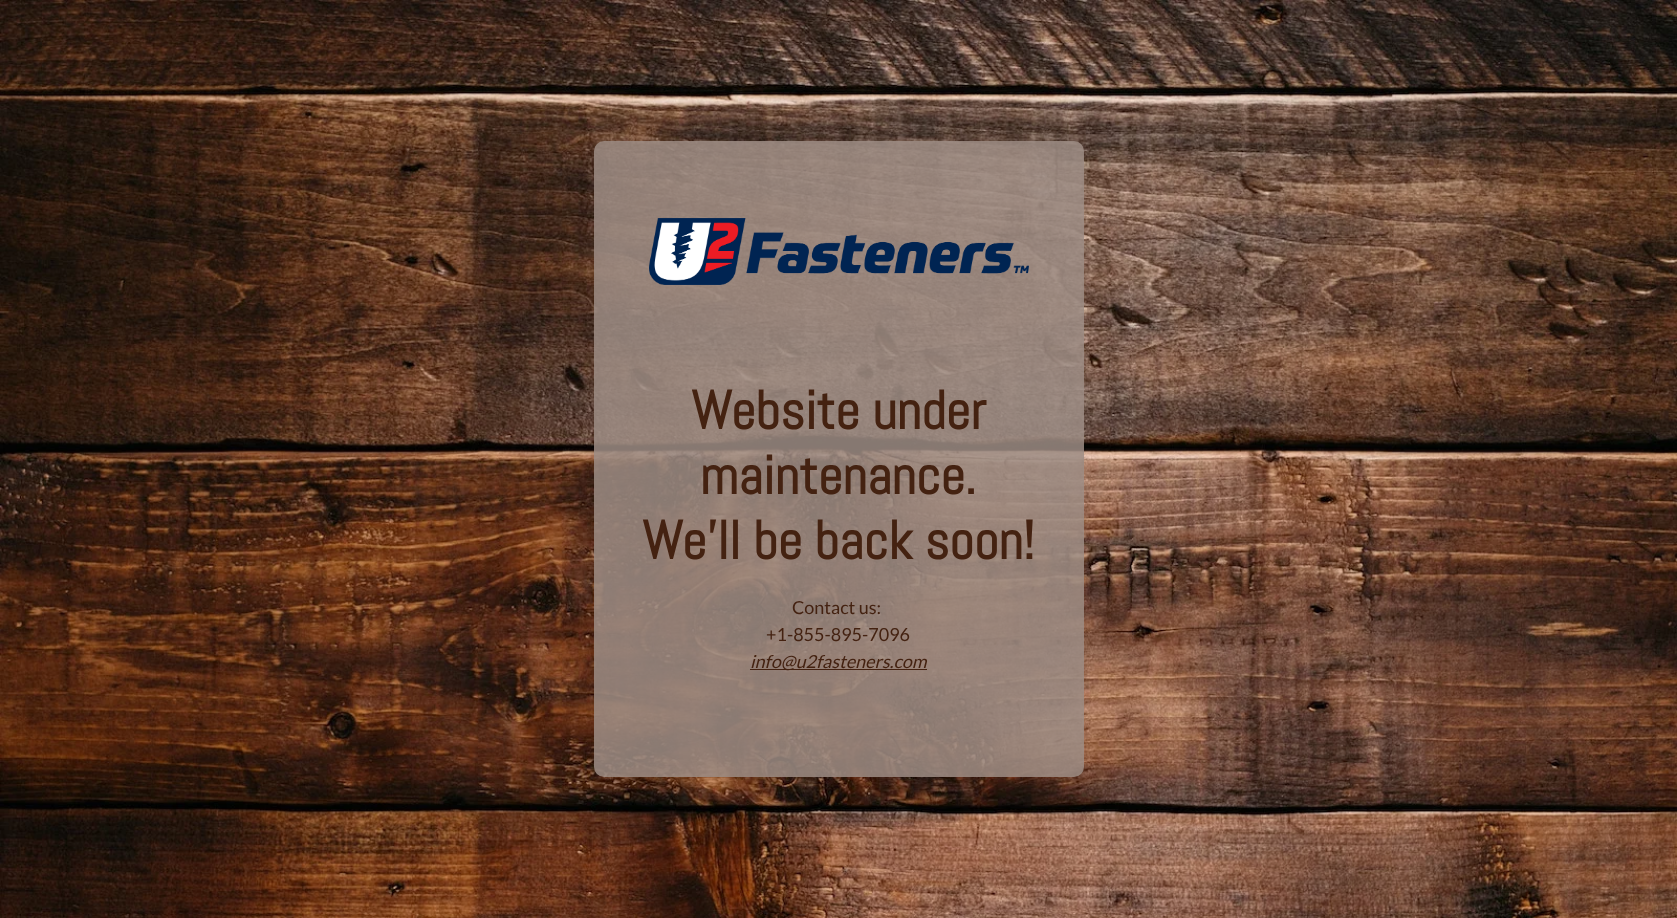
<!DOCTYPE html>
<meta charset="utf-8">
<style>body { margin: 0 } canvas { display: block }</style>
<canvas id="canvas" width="1677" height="918"></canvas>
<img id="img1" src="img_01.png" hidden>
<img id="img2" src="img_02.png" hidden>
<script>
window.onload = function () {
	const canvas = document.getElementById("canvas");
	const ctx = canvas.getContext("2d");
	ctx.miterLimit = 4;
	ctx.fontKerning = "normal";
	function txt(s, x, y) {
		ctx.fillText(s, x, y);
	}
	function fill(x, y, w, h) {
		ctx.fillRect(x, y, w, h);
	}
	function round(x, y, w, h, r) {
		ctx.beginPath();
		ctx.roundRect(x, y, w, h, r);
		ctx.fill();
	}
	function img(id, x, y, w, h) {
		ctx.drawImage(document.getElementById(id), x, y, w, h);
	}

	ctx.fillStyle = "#FFFFFF";
	fill(0, 0, 1677, 918);
	img("img1", 0, 0, 1677, 918);
	ctx.fillStyle = "rgba(158, 141, 133, 0.85)";
	round(594, 141, 490, 636, 10);
	img("img2", 649, 218, 380, 67);
	ctx.fillStyle = "#442211";
	fill(750, 669, 177, 1);
	ctx.font = "bold 54px Abel";
	txt("Website under", 691, 429);
	txt("maintenance.", 700, 494);
	txt("We'll be back soon!", 642, 559);
	ctx.font = "18px Lato";
	txt("Contact us:", 792, 614);
	txt("+1-855-895-7096", 766, 641);
	ctx.font = "italic 18px Lato";
	txt("info@u2fasteners.com", 750, 668);
};
</script>
